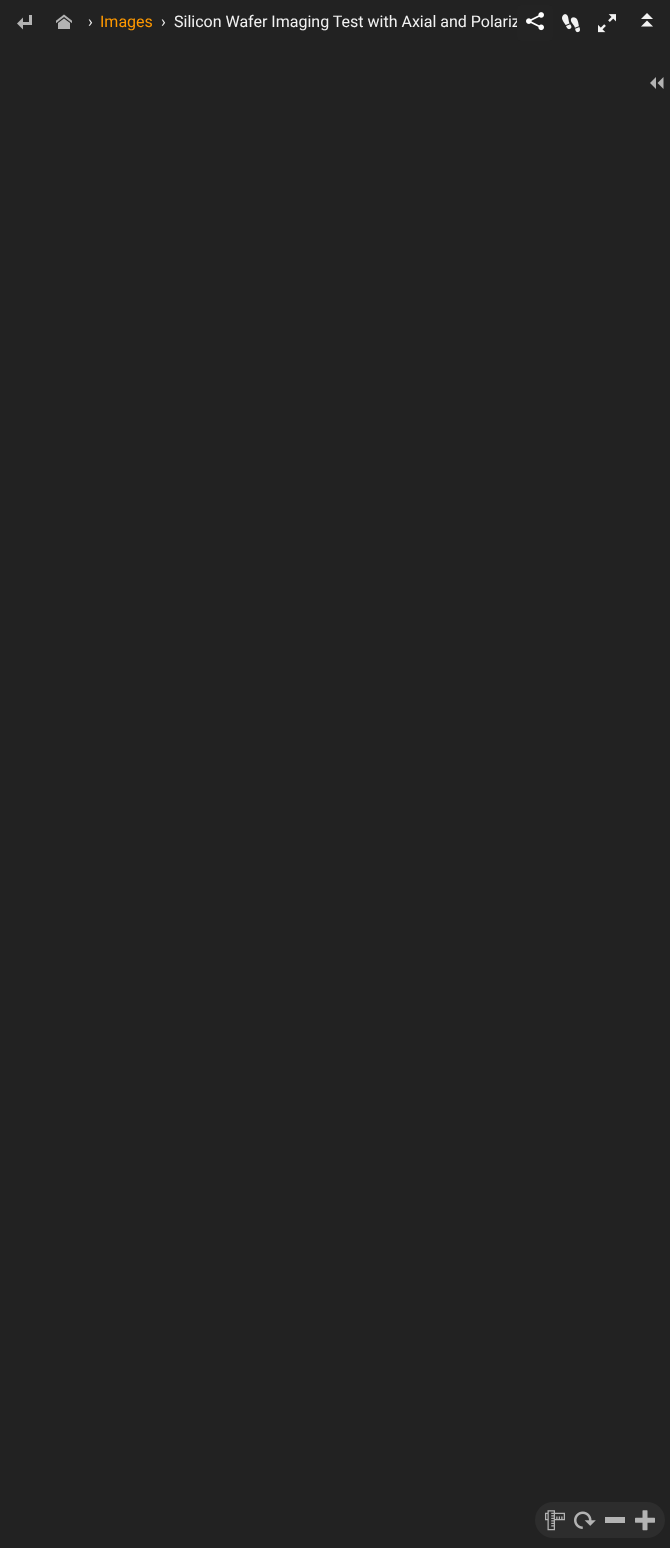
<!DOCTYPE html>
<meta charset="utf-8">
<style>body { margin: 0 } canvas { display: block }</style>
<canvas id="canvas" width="670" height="1548"></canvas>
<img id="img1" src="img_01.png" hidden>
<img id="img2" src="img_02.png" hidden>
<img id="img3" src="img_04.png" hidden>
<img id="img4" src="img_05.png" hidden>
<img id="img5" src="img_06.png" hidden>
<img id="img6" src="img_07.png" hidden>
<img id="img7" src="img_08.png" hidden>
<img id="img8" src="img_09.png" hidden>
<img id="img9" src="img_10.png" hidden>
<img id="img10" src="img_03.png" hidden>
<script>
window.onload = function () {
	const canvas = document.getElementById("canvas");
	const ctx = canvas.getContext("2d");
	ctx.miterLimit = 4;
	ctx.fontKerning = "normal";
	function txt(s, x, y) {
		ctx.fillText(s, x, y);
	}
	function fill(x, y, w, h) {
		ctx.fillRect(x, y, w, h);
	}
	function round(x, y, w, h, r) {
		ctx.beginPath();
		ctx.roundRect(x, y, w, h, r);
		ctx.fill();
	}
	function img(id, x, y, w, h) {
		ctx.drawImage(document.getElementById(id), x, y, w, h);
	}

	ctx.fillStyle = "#222222";
	fill(0, 0, 670, 1548);
	img("img1", 17, 15, 15, 15);
	img("img2", 56, 14, 16, 15);
	img("img3", 562, 14, 18, 19);
	img("img4", 598, 14, 18, 19);
	img("img5", 641, 13, 12, 14);
	img("img6", 650, 77, 14, 12);
	ctx.fillStyle = "#2D2D2D";
	round(535, 1502, 130, 36, 18);
	img("img7", 545, 1510, 20, 21);
	img("img8", 574, 1511, 22, 18);
	ctx.fillStyle = "#B3B3B3";
	fill(605, 1517, 20, 6);
	img("img9", 635, 1510, 20, 21);
	ctx.font = "16px Roboto";
	ctx.fillStyle = "#F2F2F2";
	txt("›", 88, 27);
	ctx.fillStyle = "#FF9900";
	txt("Images", 100, 27);
	ctx.fillStyle = "#F2F2F2";
	txt("›", 161, 27);
	txt("Silicon Wafer Imaging Test with Axial and Polariz", 174, 27);
	ctx.fillStyle = "#232323";
	round(517, 5, 36, 36, 4);
	img("img10", 526, 12, 18, 19);
};
</script>
